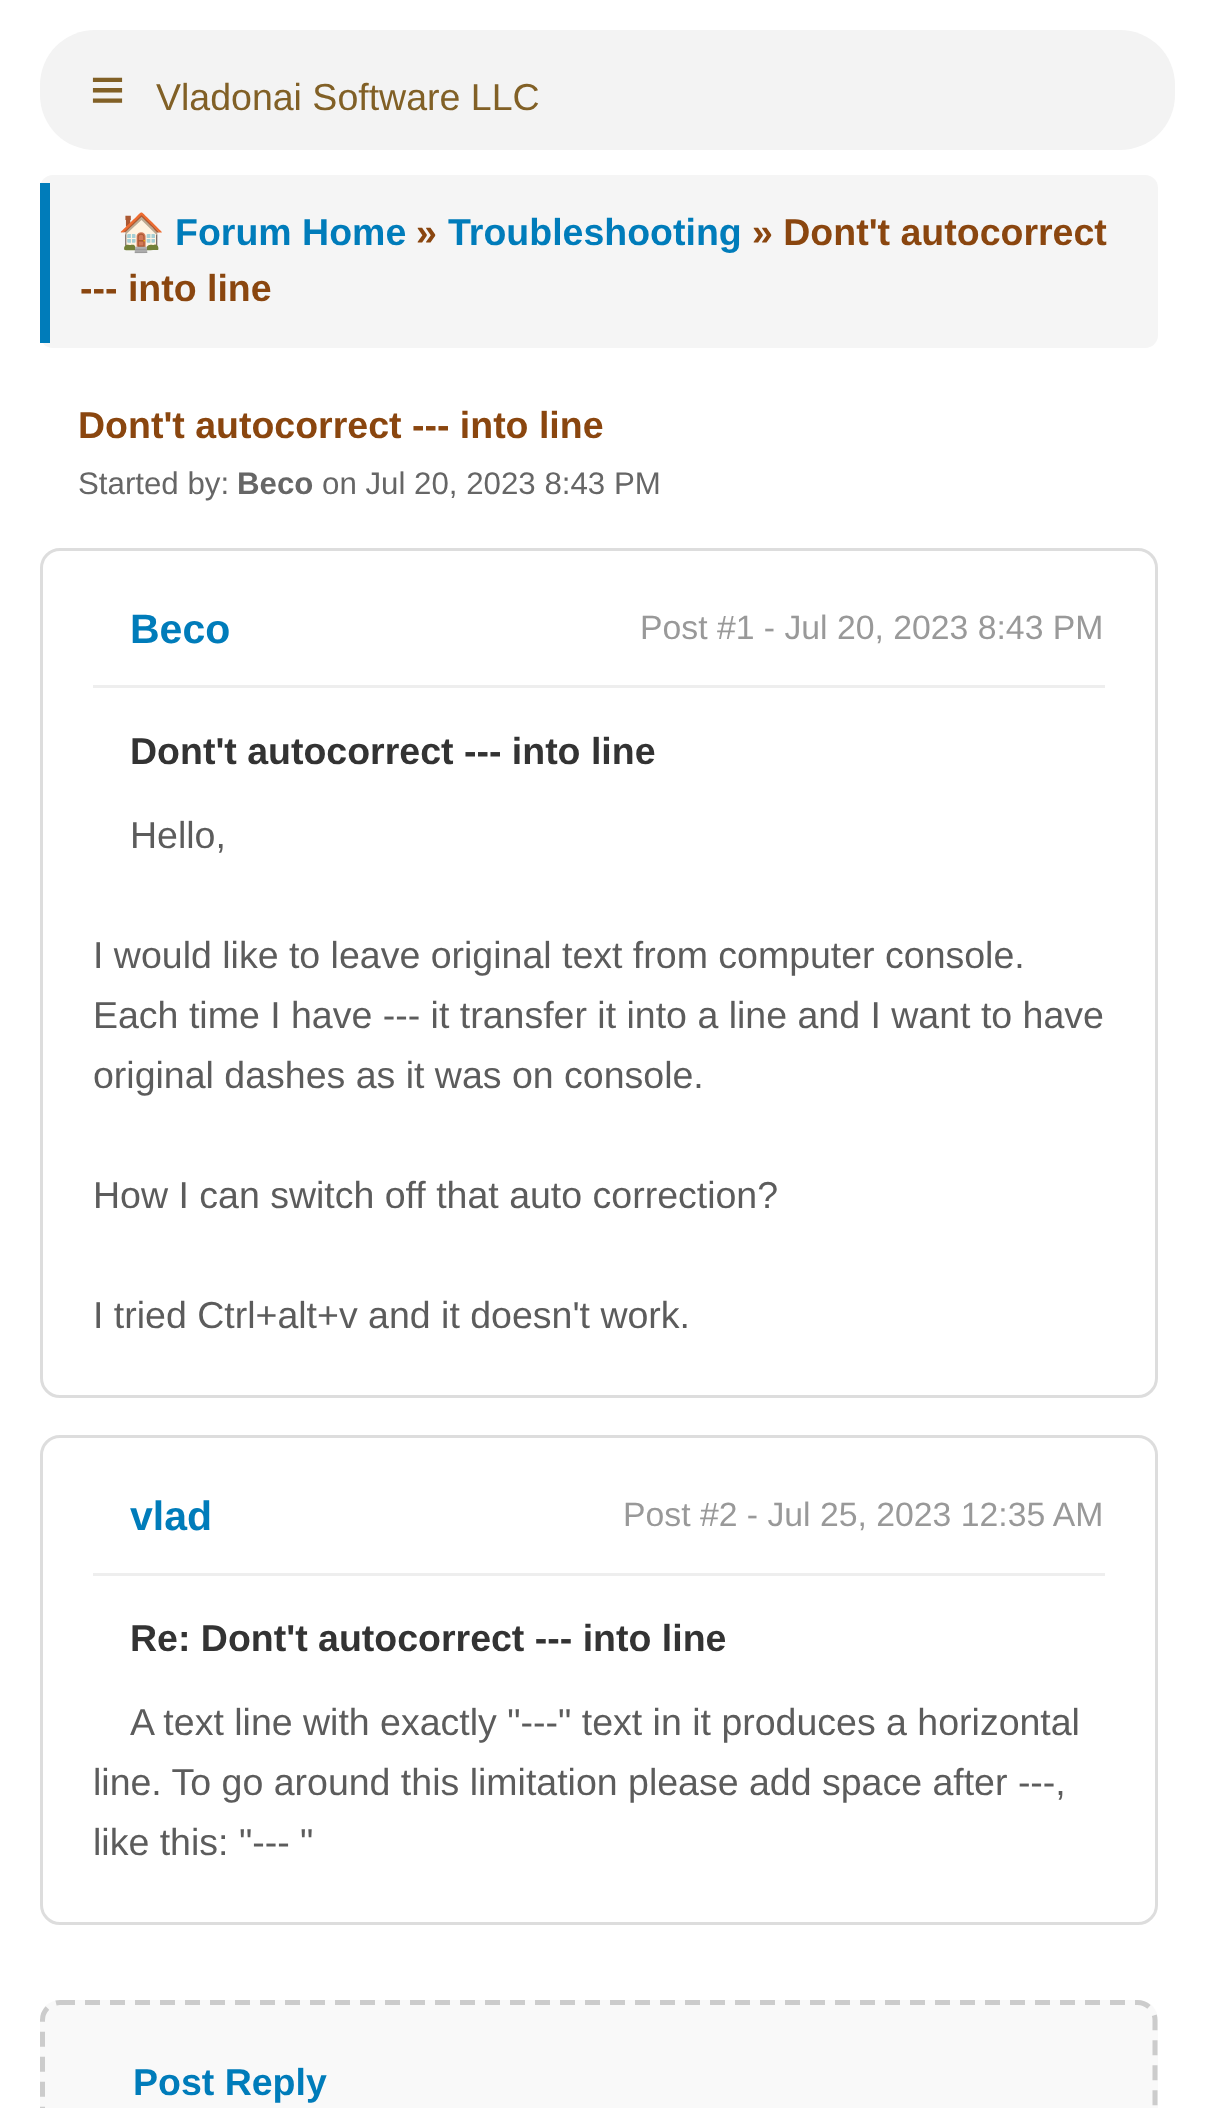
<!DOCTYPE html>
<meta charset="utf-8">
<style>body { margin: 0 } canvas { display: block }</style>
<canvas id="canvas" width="1214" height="2108"></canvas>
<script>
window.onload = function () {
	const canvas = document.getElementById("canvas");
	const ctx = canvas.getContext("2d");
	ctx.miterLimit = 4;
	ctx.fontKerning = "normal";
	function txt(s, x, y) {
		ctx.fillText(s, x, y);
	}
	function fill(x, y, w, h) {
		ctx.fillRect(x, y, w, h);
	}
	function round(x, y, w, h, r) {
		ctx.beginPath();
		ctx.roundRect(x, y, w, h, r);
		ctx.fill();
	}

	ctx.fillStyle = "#FFFFFF";
	fill(0, 0, 1214, 2108);
	ctx.fillStyle = "#F3F3F3";
	round(40, 30, 1135, 120, 55);
	ctx.fillStyle = "#F5F5F5";
	round(40, 175, 1118, 173, 13);
	ctx.fillStyle = "#007CBA";
	fill(40, 183, 10, 160);
	ctx.beginPath();
	ctx.roundRect(41.5, 549.5, 1115, 847, 18.5);
	ctx.strokeStyle = "#DDDDDD";
	ctx.lineWidth = 3;
	ctx.stroke();
	ctx.fillStyle = "#EEEEEE";
	fill(93, 685, 1012, 3);
	ctx.beginPath();
	ctx.roundRect(41.5, 1436.5, 1115, 487, 18.5);
	ctx.stroke();
	fill(93, 1573, 1012, 3);
	ctx.fillStyle = "#F9F9F9";
	round(40, 2000, 1118, 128, 20);
	ctx.beginPath();
	ctx.moveTo(60, 2002.5);
	ctx.lineTo(1137.5, 2002.5);
	ctx.bezierCurveTo(1147, 2002.5, 1155, 2010.5, 1155, 2020);
	ctx.lineTo(1155, 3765);
	ctx.bezierCurveTo(1155, 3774.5, 1147, 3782.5, 1137.5, 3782.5);
	ctx.lineTo(60, 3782.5);
	ctx.bezierCurveTo(50.5, 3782.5, 42.5, 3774.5, 42.5, 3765);
	ctx.lineTo(42.5, 2020);
	ctx.bezierCurveTo(42.5, 2010.5, 50.5, 2002.5, 60, 2002.5);
	ctx.closePath();
	ctx.strokeStyle = "#CCCCCC";
	ctx.lineWidth = 5;
	ctx.setLineDash([15, 10]);
	ctx.stroke();
	ctx.font = "60px Liberation Sans";
	ctx.fillStyle = "#816026";
	txt("≡", 90, 110);
	ctx.font = "37.5px Liberation Sans";
	txt("Vladonai Software LLC", 156, 110);
	ctx.font = "bold 37.5px Noto Color Emoji";
	ctx.fillStyle = "#007CBA";
	txt("🏠", 118, 245);
	ctx.font = "bold 37.5px Liberation Sans";
	txt("Forum Home", 175, 245);
	ctx.fillStyle = "#8A460F";
	txt("»", 416, 245);
	ctx.fillStyle = "#007CBA";
	txt("Troubleshooting", 448, 245);
	ctx.fillStyle = "#8A460F";
	txt("» Dont't autocorrect", 752, 245);
	txt("--- into line", 80, 301);
	txt("Dont't autocorrect --- into line", 78, 438);
	ctx.font = "31.25px Liberation Sans";
	ctx.fillStyle = "#666666";
	txt("Started by:", 78, 494);
	ctx.font = "bold 31.25px Liberation Sans";
	txt("Beco", 237, 494);
	ctx.font = "31.25px Liberation Sans";
	txt("on Jul 20, 2023 8:43 PM", 322, 494);
	ctx.font = "bold 41px Liberation Sans";
	ctx.fillStyle = "#007CBA";
	txt("Beco", 130, 643);
	ctx.font = "33.75px Liberation Sans";
	ctx.fillStyle = "#999999";
	txt("Post #1 - Jul 20, 2023 8:43 PM", 640, 639);
	ctx.font = "bold 37.5px Liberation Sans";
	ctx.fillStyle = "#333333";
	txt("Dont't autocorrect --- into line", 130, 764);
	ctx.font = "37.5px Liberation Sans";
	ctx.fillStyle = "#5C5C5C";
	txt("Hello,", 130, 848);
	txt("I would like to leave original text from computer console.", 93, 968);
	txt("Each time I have --- it transfer it into a line and I want to have", 93, 1028);
	txt("original dashes as it was on console.", 93, 1088);
	txt("How I can switch off that auto correction?", 93, 1208);
	txt("I tried Ctrl+alt+v and it doesn't work.", 93, 1328);
	ctx.font = "bold 41px Liberation Sans";
	ctx.fillStyle = "#007CBA";
	txt("vlad", 130, 1530);
	ctx.font = "33.75px Liberation Sans";
	ctx.fillStyle = "#999999";
	txt("Post #2 - Jul 25, 2023 12:35 AM", 623, 1526);
	ctx.font = "bold 37.5px Liberation Sans";
	ctx.fillStyle = "#333333";
	txt("Re: Dont't autocorrect --- into line", 130, 1651);
	ctx.font = "37.5px Liberation Sans";
	ctx.fillStyle = "#5C5C5C";
	txt("A text line with exactly \"---\" text in it produces a horizontal", 130, 1735);
	txt("line. To go around this limitation please add space after ---,", 93, 1795);
	txt("like this: \"--- \"", 93, 1855);
	ctx.font = "bold 37.5px Liberation Sans";
	ctx.fillStyle = "#007CBA";
	txt("Post Reply", 133, 2095);
};
</script>
